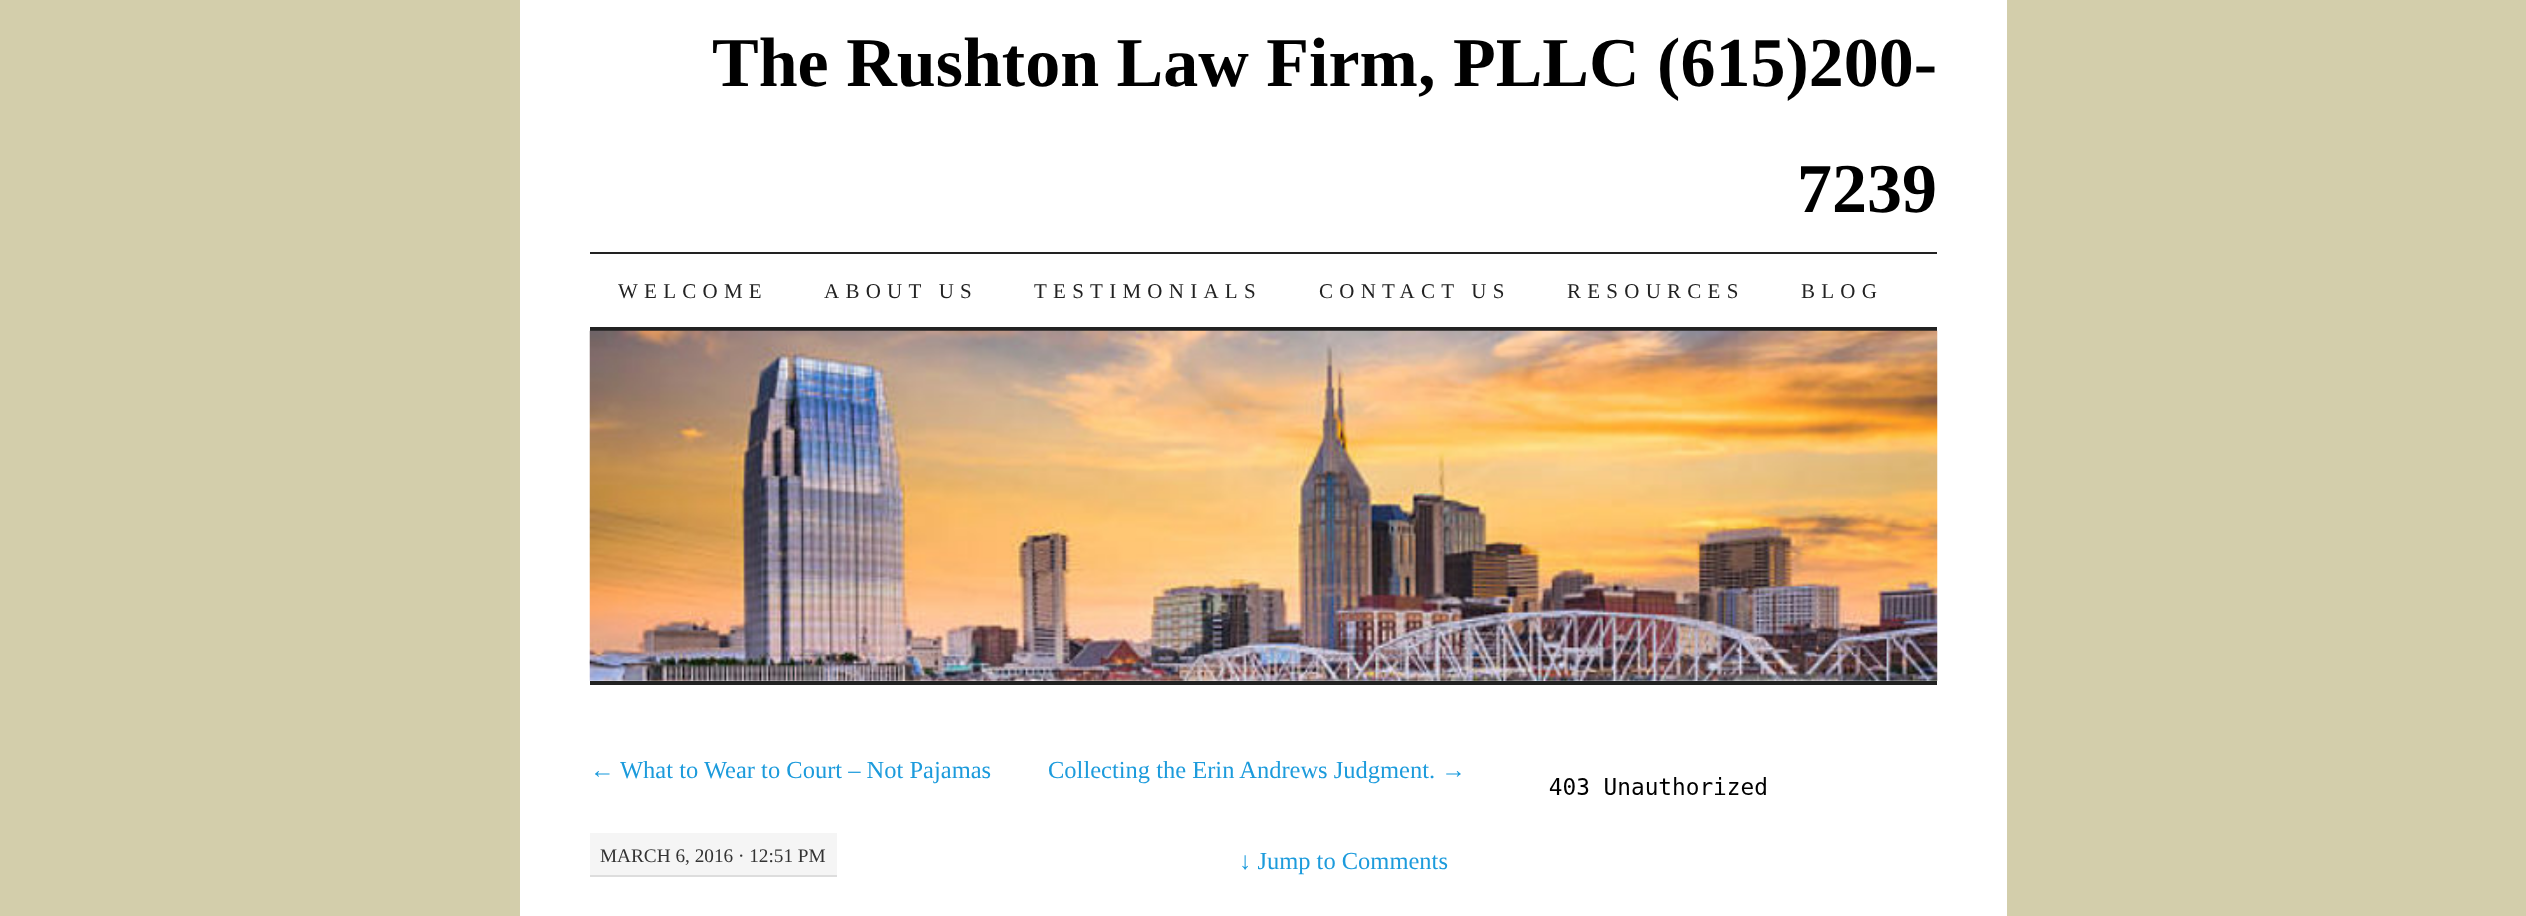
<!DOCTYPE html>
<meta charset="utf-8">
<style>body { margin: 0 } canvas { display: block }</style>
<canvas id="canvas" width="2526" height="916"></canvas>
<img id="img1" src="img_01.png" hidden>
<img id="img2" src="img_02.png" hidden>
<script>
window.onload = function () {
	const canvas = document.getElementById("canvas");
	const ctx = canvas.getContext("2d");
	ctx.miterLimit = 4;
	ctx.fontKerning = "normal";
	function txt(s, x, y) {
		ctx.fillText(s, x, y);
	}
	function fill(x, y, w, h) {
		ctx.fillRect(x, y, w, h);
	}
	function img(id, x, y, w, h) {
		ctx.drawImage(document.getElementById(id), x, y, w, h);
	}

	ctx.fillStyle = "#D3CEAB";
	fill(0, 0, 2526, 916);
	ctx.fillStyle = "#FFFFFF";
	fill(520, 0, 1487, 916);
	ctx.fillStyle = "#222222";
	fill(590, 252, 1347, 2);
	fill(590, 327, 1347, 4);
	img("img1", 589, 330, 1349, 351);
	fill(590, 681, 1347, 4);
	ctx.fillStyle = "#F5F5F5";
	fill(590, 833, 247, 42);
	ctx.fillStyle = "#DDDDDD";
	fill(590, 875, 247, 2);
	img("img2", 1549, 777, 217, 18);
	ctx.font = "bold 70px Liberation Serif";
	ctx.fillStyle = "#000000";
	txt("The Rushton Law Firm, PLLC (615)200-", 712, 86);
	txt("7239", 1797, 212);
	ctx.letterSpacing = "6.25px";
	ctx.font = "21px Liberation Serif";
	ctx.fillStyle = "#222222";
	txt("WELCOME", 618, 298);
	txt("ABOUT US", 824, 298);
	txt("TESTIMONIALS", 1034, 298);
	txt("CONTACT US", 1319, 298);
	txt("RESOURCES", 1567, 298);
	txt("BLOG", 1801, 298);
	ctx.letterSpacing = "0px";
	ctx.font = "24.5px Liberation Serif";
	ctx.fillStyle = "#1C9BDC";
	txt("←", 590, 778);
	txt("What to Wear to Court – Not Pajamas", 620, 778);
	txt("Collecting the Erin Andrews Judgment. →", 1048, 778);
	ctx.font = "19.25px Liberation Serif";
	ctx.fillStyle = "#333333";
	txt("MARCH 6, 2016 · 12:51 PM", 600, 862);
	ctx.font = "24.5px Liberation Serif";
	ctx.fillStyle = "#1C9BDC";
	txt("↓ Jump to Comments", 1239, 869);
};
</script>
